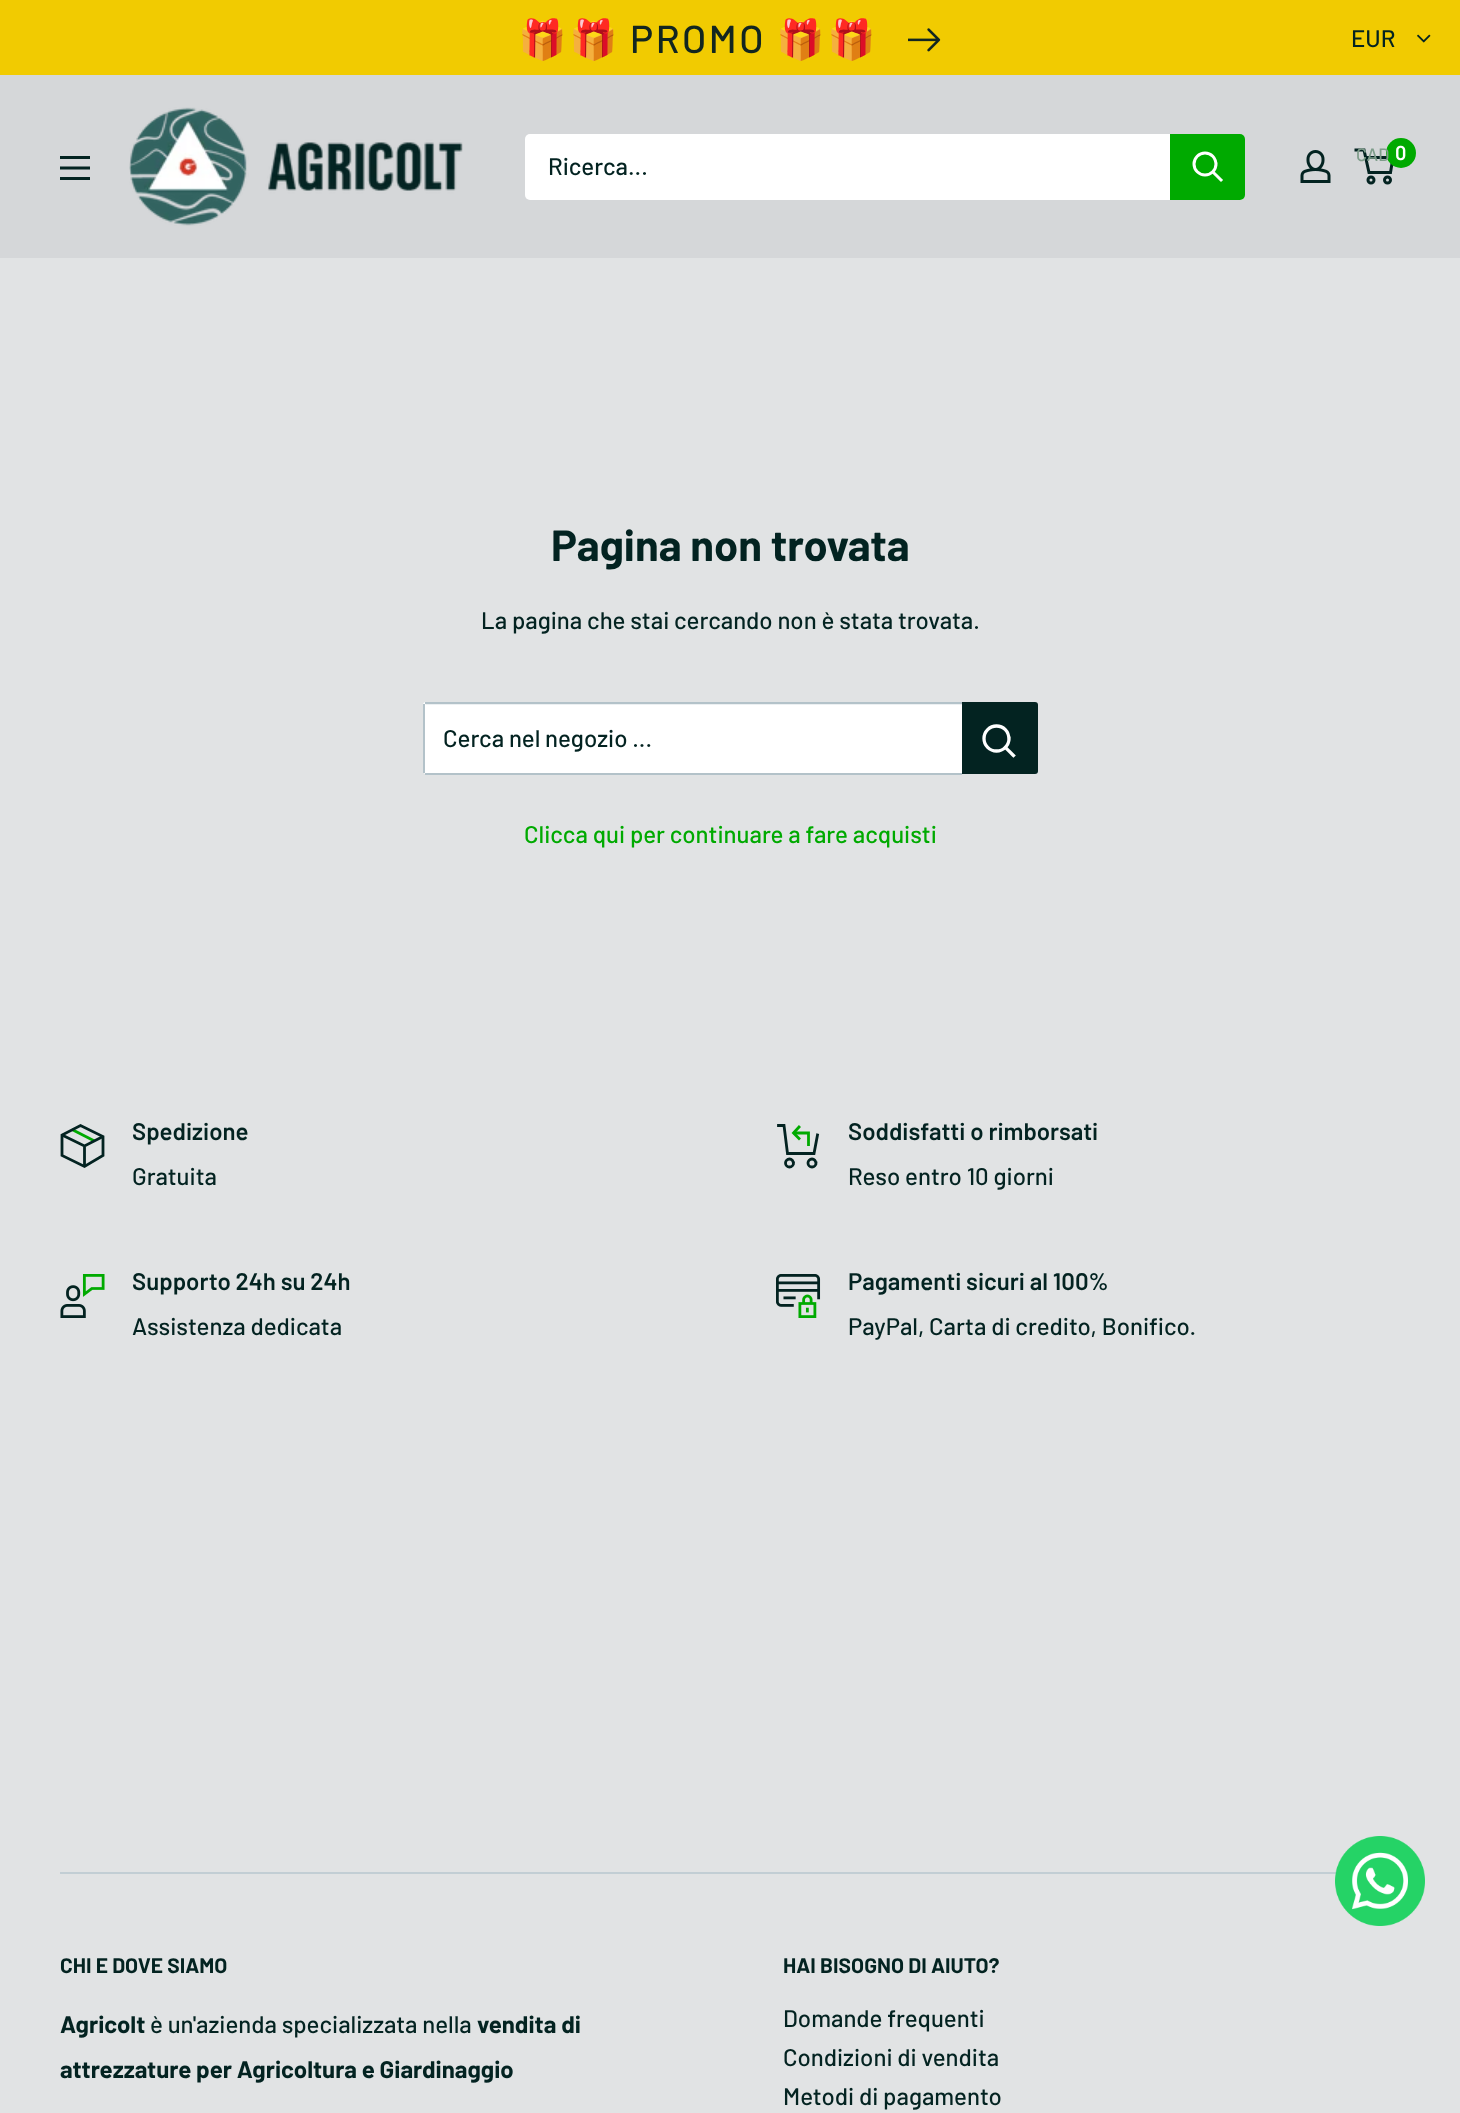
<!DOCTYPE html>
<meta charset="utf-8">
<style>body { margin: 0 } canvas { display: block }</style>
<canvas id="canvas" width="1460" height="2113"></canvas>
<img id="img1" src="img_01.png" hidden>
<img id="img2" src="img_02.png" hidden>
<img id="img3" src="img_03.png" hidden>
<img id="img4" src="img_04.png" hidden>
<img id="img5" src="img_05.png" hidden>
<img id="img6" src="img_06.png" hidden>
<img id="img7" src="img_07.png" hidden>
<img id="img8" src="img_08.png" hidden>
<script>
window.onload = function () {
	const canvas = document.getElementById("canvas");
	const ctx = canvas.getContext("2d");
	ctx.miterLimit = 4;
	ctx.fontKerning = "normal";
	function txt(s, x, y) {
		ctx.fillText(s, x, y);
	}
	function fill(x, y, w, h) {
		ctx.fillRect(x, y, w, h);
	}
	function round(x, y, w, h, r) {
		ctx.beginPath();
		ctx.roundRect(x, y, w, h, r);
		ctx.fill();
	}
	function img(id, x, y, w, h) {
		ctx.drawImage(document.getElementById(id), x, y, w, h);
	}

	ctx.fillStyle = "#E1E3E4";
	fill(0, 0, 1460, 2113);
	ctx.fillStyle = "#F1CB01";
	fill(0, 0, 1460, 75);
	img("img1", 908, 28, 33, 24);
	img("img2", 1417, 34, 14, 9);
	ctx.fillStyle = "#D5D7D9";
	fill(0, 75, 1460, 183);
	img("img3", 129, 107, 334, 119);
	img("img4", 1300, 150, 31, 33);
	ctx.beginPath();
	ctx.arc(1371, 180, 3, 0, Math.PI * 2);
	ctx.strokeStyle = "#032321";
	ctx.lineWidth = 3;
	ctx.stroke();
	ctx.beginPath();
	ctx.arc(1387.5, 180, 3, 0, Math.PI * 2);
	ctx.stroke();
	ctx.beginPath();
	ctx.moveTo(1365.5, 157.5);
	ctx.lineTo(1393, 157.5);
	ctx.lineTo(1390.5, 172.5);
	ctx.lineTo(1369, 172.5);
	ctx.lineTo(1364, 150);
	ctx.lineTo(1354.5, 150);
	ctx.stroke();
	ctx.fillStyle = "#00AA00";
	ctx.beginPath();
	ctx.arc(1401, 153, 15, 0, Math.PI * 2);
	ctx.fill();
	img("img5", 60, 156, 30, 24);
	ctx.fillStyle = "#FFFFFF";
	round(525, 134, 720, 66, 5);
	ctx.fillStyle = "#00AA00";
	ctx.beginPath();
	ctx.roundRect(1170, 134, 75, 66, [0, 5, 5, 0]);
	ctx.fill();
	ctx.beginPath();
	ctx.moveTo(1221, 180);
	ctx.lineTo(1213.5, 172.5);
	ctx.strokeStyle = "#FFFFFF";
	ctx.lineCap = "square";
	ctx.stroke();
	ctx.beginPath();
	ctx.arc(1205, 164, 11, 0, Math.PI * 2);
	ctx.stroke();
	ctx.fillStyle = "#FFFFFF";
	ctx.beginPath();
	ctx.roundRect(423, 702, 539, 72, [3, 0, 0, 3]);
	ctx.fill();
	ctx.fillStyle = "#ECF0F2";
	ctx.beginPath();
	ctx.moveTo(426, 705);
	ctx.lineTo(962, 705);
	ctx.lineTo(962, 704);
	ctx.lineTo(426, 704);
	ctx.bezierCurveTo(426, 704, 425, 705, 425, 705);
	ctx.closePath();
	ctx.fill();
	ctx.fillStyle = "#B3C2C9";
	fill(425, 702, 537, 2);
	fill(425, 773, 537, 2);
	fill(423, 704, 2, 69);
	ctx.fillStyle = "#032321";
	ctx.beginPath();
	ctx.roundRect(962, 702, 76, 72, [0, 3, 3, 0]);
	ctx.fill();
	ctx.beginPath();
	ctx.moveTo(1013.5, 755.5);
	ctx.lineTo(1005.5, 747.5);
	ctx.lineWidth = 3.3;
	ctx.stroke();
	ctx.beginPath();
	ctx.arc(996.5, 738.5, 12.5, 0, Math.PI * 2);
	ctx.stroke();
	ctx.beginPath();
	ctx.moveTo(72, 1129.5);
	ctx.lineTo(94.5, 1141);
	ctx.strokeStyle = "#00AA00";
	ctx.lineWidth = 2.8;
	ctx.lineCap = "butt";
	ctx.stroke();
	ctx.beginPath();
	ctx.moveTo(103, 1136.5);
	ctx.lineTo(84.5, 1146);
	ctx.lineTo(62, 1135);
	ctx.moveTo(84.5, 1146);
	ctx.lineTo(84.5, 1166.5);
	ctx.strokeStyle = "#032321";
	ctx.stroke();
	ctx.beginPath();
	ctx.moveTo(103, 1136.5);
	ctx.lineTo(103, 1155.5);
	ctx.lineTo(84.5, 1166.5);
	ctx.lineTo(62, 1155.5);
	ctx.lineTo(62, 1135);
	ctx.lineTo(80.5, 1125.5);
	ctx.closePath();
	ctx.lineCap = "square";
	ctx.stroke();
	ctx.beginPath();
	ctx.moveTo(793.5, 1133);
	ctx.lineTo(808.5, 1133);
	ctx.lineTo(808.5, 1146);
	ctx.strokeStyle = "#00AA00";
	ctx.lineCap = "butt";
	ctx.stroke();
	ctx.beginPath();
	ctx.moveTo(799, 1138.5);
	ctx.lineTo(793.5, 1133);
	ctx.lineTo(799, 1127);
	ctx.lineCap = "square";
	ctx.stroke();
	ctx.beginPath();
	ctx.moveTo(817.5, 1135);
	ctx.lineTo(814, 1153.5);
	ctx.lineTo(787.5, 1153.5);
	ctx.lineTo(784, 1125.5);
	ctx.lineTo(778.5, 1125.5);
	ctx.strokeStyle = "#032321";
	ctx.stroke();
	ctx.beginPath();
	ctx.arc(789.5, 1163, 4, 0, Math.PI * 2);
	ctx.stroke();
	ctx.beginPath();
	ctx.arc(812, 1163, 4, 0, Math.PI * 2);
	ctx.stroke();
	img("img6", 60, 1274, 45, 44);
	img("img7", 776, 1274, 45, 44);
	ctx.fillStyle = "#C2CED4";
	fill(60, 1872, 1277, 2);
	img("img8", 1335, 1836, 90, 90);
	ctx.letterSpacing = "2.5px";
	ctx.font = "39px Noto Color Emoji";
	ctx.fillStyle = "#122620";
	txt("🎁🎁", 518, 53);
	ctx.font = "500 39px Barlow";
	txt("PROMO", 630, 53);
	ctx.font = "39px Noto Color Emoji";
	txt("🎁🎁", 776, 53);
	ctx.letterSpacing = "0px";
	ctx.font = "500 24px Barlow";
	ctx.fillStyle = "#032321";
	txt("EUR", 1351, 47);
	ctx.font = "500 18px Barlow";
	ctx.fillStyle = "#7F9D8B";
	txt("CAD", 1356, 161);
	ctx.font = "600 20px Barlow";
	ctx.fillStyle = "#FFFFFF";
	txt("0", 1395, 160);
	ctx.font = "500 24px Barlow";
	ctx.fillStyle = "#032321";
	txt("Ricerca...", 548, 175);
	ctx.font = "bold 43.5px Barlow";
	txt("Pagina non trovata", 551, 561);
	ctx.font = "500 24px Barlow";
	txt("La pagina che stai cercando non è stata trovata.", 481, 629);
	txt("Cerca nel negozio ...", 443, 747);
	ctx.fillStyle = "#00AA00";
	txt("Clicca qui per continuare a fare acquisti", 524, 843);
	ctx.font = "600 24px Barlow";
	ctx.fillStyle = "#032321";
	txt("Spedizione", 132, 1140);
	ctx.font = "500 24px Barlow";
	txt("Gratuita", 132, 1185);
	ctx.font = "600 24px Barlow";
	txt("Soddisfatti o rimborsati", 848, 1140);
	ctx.font = "500 24px Barlow";
	txt("Reso entro 10 giorni", 848, 1185);
	ctx.font = "600 24px Barlow";
	txt("Supporto 24h su 24h", 132, 1290);
	ctx.font = "500 24px Barlow";
	txt("Assistenza dedicata", 132, 1335);
	ctx.font = "600 24px Barlow";
	txt("Pagamenti sicuri al 100%", 848, 1290);
	ctx.font = "500 24px Barlow";
	txt("PayPal, Carta di credito, Bonifico.", 848, 1335);
	ctx.font = "bold 21px Barlow";
	txt("CHI E DOVE SIAMO", 60, 1973);
	ctx.font = "bold 24px Barlow";
	txt("Agricolt", 60, 2033);
	ctx.font = "500 24px Barlow";
	txt("è un'azienda specializzata nella", 150, 2033);
	ctx.font = "bold 24px Barlow";
	txt("vendita di", 477, 2033);
	txt("attrezzature per Agricoltura e Giardinaggio", 60, 2078);
	ctx.font = "bold 21px Barlow";
	txt("HAI BISOGNO DI AIUTO?", 783, 1973);
	ctx.font = "500 24px Barlow";
	txt("Domande frequenti", 783, 2027);
	txt("Condizioni di vendita", 783, 2066);
	txt("Metodi di pagamento", 783, 2105);
};
</script>
